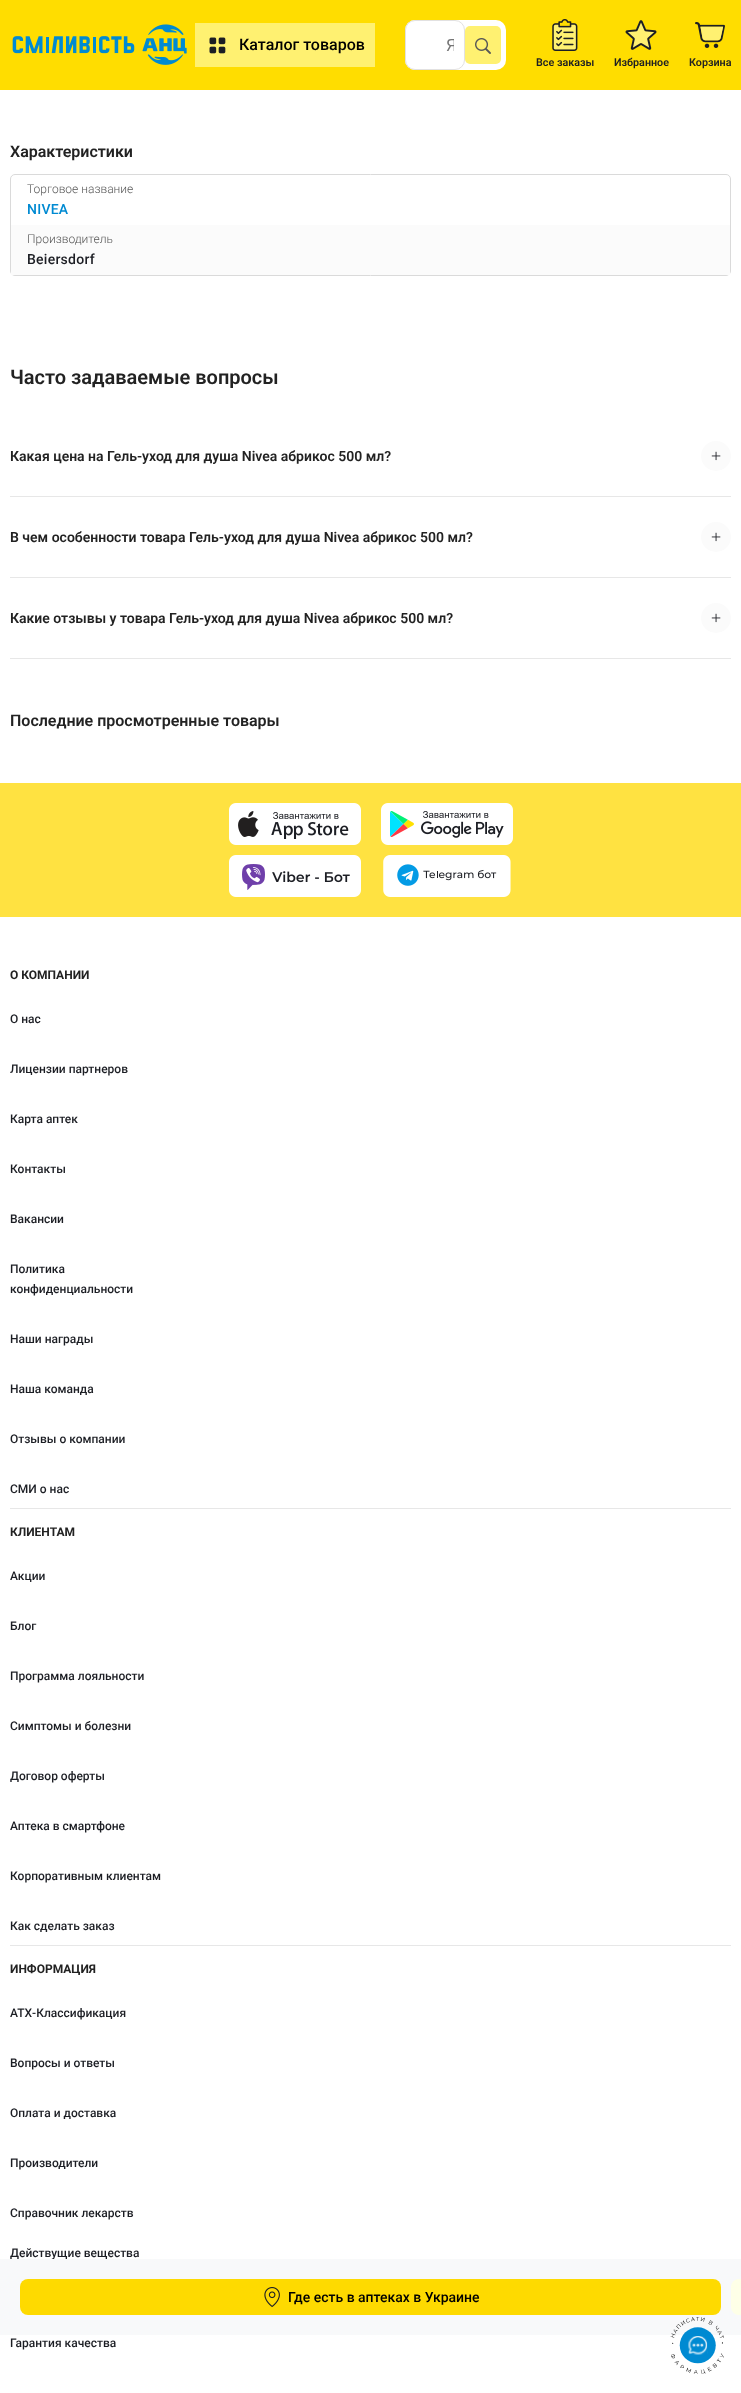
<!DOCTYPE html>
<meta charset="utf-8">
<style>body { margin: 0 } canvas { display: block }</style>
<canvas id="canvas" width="741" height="2393"></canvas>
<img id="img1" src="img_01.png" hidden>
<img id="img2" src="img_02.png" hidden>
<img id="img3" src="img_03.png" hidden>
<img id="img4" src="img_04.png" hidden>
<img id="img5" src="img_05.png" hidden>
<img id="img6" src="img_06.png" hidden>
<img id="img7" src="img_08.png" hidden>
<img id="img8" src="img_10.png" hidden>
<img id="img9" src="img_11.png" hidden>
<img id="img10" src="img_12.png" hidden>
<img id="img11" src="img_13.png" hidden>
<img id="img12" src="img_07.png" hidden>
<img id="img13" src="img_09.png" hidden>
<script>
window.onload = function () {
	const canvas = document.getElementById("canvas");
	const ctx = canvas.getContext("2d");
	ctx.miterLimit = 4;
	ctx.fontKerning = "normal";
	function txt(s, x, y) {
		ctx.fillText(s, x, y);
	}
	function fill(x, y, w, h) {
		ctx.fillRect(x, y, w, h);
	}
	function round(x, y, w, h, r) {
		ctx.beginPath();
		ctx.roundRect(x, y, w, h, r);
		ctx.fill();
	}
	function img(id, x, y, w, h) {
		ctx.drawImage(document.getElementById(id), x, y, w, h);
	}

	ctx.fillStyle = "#FFFFFF";
	fill(0, 0, 741, 2393);
	ctx.fillStyle = "#FFDD00";
	fill(0, 0, 741, 90);
	img("img1", 12, 24, 175, 41);
	ctx.fillStyle = "#FFF171";
	fill(195, 23, 180, 44);
	img("img2", 209, 37, 17, 17);
	ctx.fillStyle = "#FFFFFF";
	round(405, 20, 101, 50, 10);
	ctx.beginPath();
	ctx.roundRect(405.5, 20.5, 59, 49, 9.5);
	ctx.fill();
	ctx.strokeStyle = "#E2E1E1";
	ctx.stroke();
	ctx.fillStyle = "#FFF171";
	round(465, 26, 36, 38, 5);
	img("img3", 475, 38, 16, 16);
	img("img4", 552, 19, 26, 32);
	img("img5", 625, 20, 32, 30);
	img("img6", 695, 22, 30, 26);
	ctx.beginPath();
	ctx.roundRect(10.5, 174.5, 720, 101, 4.5);
	ctx.strokeStyle = "#DADADA";
	ctx.stroke();
	ctx.fillStyle = "#FBFBFB";
	fill(11, 225, 719, 50);
	ctx.fillStyle = "#E7E7E7";
	fill(10, 496, 721, 1);
	ctx.fillStyle = "#FBFBFB";
	ctx.beginPath();
	ctx.arc(716, 456, 15, 0, Math.PI * 2);
	ctx.fill();
	img("img7", 711, 451, 10, 10);
	ctx.fillStyle = "#E7E7E7";
	fill(10, 577, 721, 1);
	ctx.fillStyle = "#FBFBFB";
	ctx.beginPath();
	ctx.arc(716, 537, 15, 0, Math.PI * 2);
	ctx.fill();
	img("img7", 711, 532, 10, 10);
	ctx.fillStyle = "#E7E7E7";
	fill(10, 658, 721, 1);
	ctx.fillStyle = "#FBFBFB";
	ctx.beginPath();
	ctx.arc(716, 618, 15, 0, Math.PI * 2);
	ctx.fill();
	img("img7", 711, 613, 10, 10);
	ctx.fillStyle = "#FFE241";
	fill(0, 783, 741, 134);
	img("img8", 229, 803, 132, 42);
	img("img9", 381, 803, 132, 42);
	img("img10", 229, 855, 132, 42);
	img("img11", 383, 855, 128, 42);
	ctx.fillStyle = "#E7E7E7";
	fill(10, 1508, 721, 1);
	fill(10, 1945, 721, 1);
	ctx.font = "500 16px Roboto";
	ctx.fillStyle = "#000000";
	txt("Каталог товаров", 239, 50);
	ctx.save();
	ctx.beginPath();
	ctx.rect(446, 35, 8, 20);
	ctx.clip();
	ctx.font = "17px Roboto";
	ctx.fillStyle = "#757575";
	txt("Я", 446, 51);
	ctx.restore();
	ctx.font = "600 10.75px Roboto";
	ctx.fillStyle = "#1C1E24";
	txt("Все заказы", 536, 66);
	txt("Избранное", 614, 66);
	ctx.fillStyle = "#222222";
	txt("Корзина", 689, 66);
	ctx.font = "600 16px Roboto";
	txt("Характеристики", 10, 157);
	ctx.font = "300 12px Roboto";
	ctx.fillStyle = "#575757";
	txt("Торговое название", 27, 193);
	ctx.letterSpacing = "0.25px";
	ctx.font = "500 14px Roboto";
	ctx.fillStyle = "#008AD2";
	txt("NIVEA", 27, 214);
	ctx.letterSpacing = "0px";
	ctx.font = "300 12px Roboto";
	ctx.fillStyle = "#575757";
	txt("Производитель", 27, 243);
	ctx.letterSpacing = "0.25px";
	ctx.font = "500 14px Roboto";
	ctx.fillStyle = "#1C1E24";
	txt("Beiersdorf", 27, 264);
	ctx.letterSpacing = "0px";
	ctx.font = "600 20px Roboto";
	ctx.fillStyle = "#222222";
	txt("Часто задаваемые вопросы", 10, 384);
	ctx.font = "600 14px Roboto";
	txt("Какая цена на Гель-уход для душа Nivea абрикос 500 мл?", 10, 461);
	txt("В чем особенности товара Гель-уход для душа Nivea абрикос 500 мл?", 10, 542);
	txt("Какие отзывы у товара Гель-уход для душа Nivea абрикос 500 мл?", 10, 623);
	ctx.font = "600 16px Roboto";
	txt("Последние просмотренные товары", 10, 726);
	ctx.font = "bold 12px Roboto";
	txt("О КОМПАНИИ", 10, 979);
	ctx.font = "500 12px Roboto";
	ctx.fillStyle = "#1C1E24";
	txt("О нас", 10, 1023);
	txt("Лицензии партнеров", 10, 1073);
	txt("Карта аптек", 10, 1123);
	txt("Контакты", 10, 1173);
	txt("Вакансии", 10, 1223);
	txt("Политика", 10, 1273);
	txt("конфиденциальности", 10, 1293);
	txt("Наши награды", 10, 1343);
	txt("Наша команда", 10, 1393);
	txt("Отзывы о компании", 10, 1443);
	txt("СМИ о нас", 10, 1493);
	ctx.font = "bold 12px Roboto";
	ctx.fillStyle = "#222222";
	txt("КЛИЕНТАМ", 10, 1536);
	ctx.font = "500 12px Roboto";
	ctx.fillStyle = "#1C1E24";
	txt("Акции", 10, 1580);
	txt("Блог", 10, 1630);
	txt("Программа лояльности", 10, 1680);
	txt("Симптомы и болезни", 10, 1730);
	txt("Договор оферты", 10, 1780);
	txt("Аптека в смартфоне", 10, 1830);
	txt("Корпоративным клиентам", 10, 1880);
	txt("Как сделать заказ", 10, 1930);
	ctx.font = "bold 12px Roboto";
	ctx.fillStyle = "#222222";
	txt("ИНФОРМАЦИЯ", 10, 1973);
	ctx.font = "500 12px Roboto";
	ctx.fillStyle = "#1C1E24";
	txt("АТХ-Классификация", 10, 2017);
	txt("Вопросы и ответы", 10, 2067);
	txt("Оплата и доставка", 10, 2117);
	txt("Производители", 10, 2167);
	txt("Справочник лекарств", 10, 2217);
	txt("Действущие вещества", 10, 2257);
	ctx.fillStyle = "#F8F9FA";
	fill(0, 2259, 741, 76);
	img("img12", 670, 2317, 54, 57);
	ctx.fillStyle = "#FEFFE7";
	round(731, 2279, 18, 36, 8);
	ctx.fillStyle = "#FEDA00";
	round(20, 2279, 701, 36, 8);
	ctx.font = "500 14px Roboto";
	ctx.fillStyle = "#000000";
	txt("Где есть в аптеках в Украине", 288, 2302);
	img("img13", 264, 2287, 16, 20);
	ctx.font = "500 12px Roboto";
	ctx.fillStyle = "#1C1E24";
	txt("Гарантия качества", 10, 2347);
};
</script>
